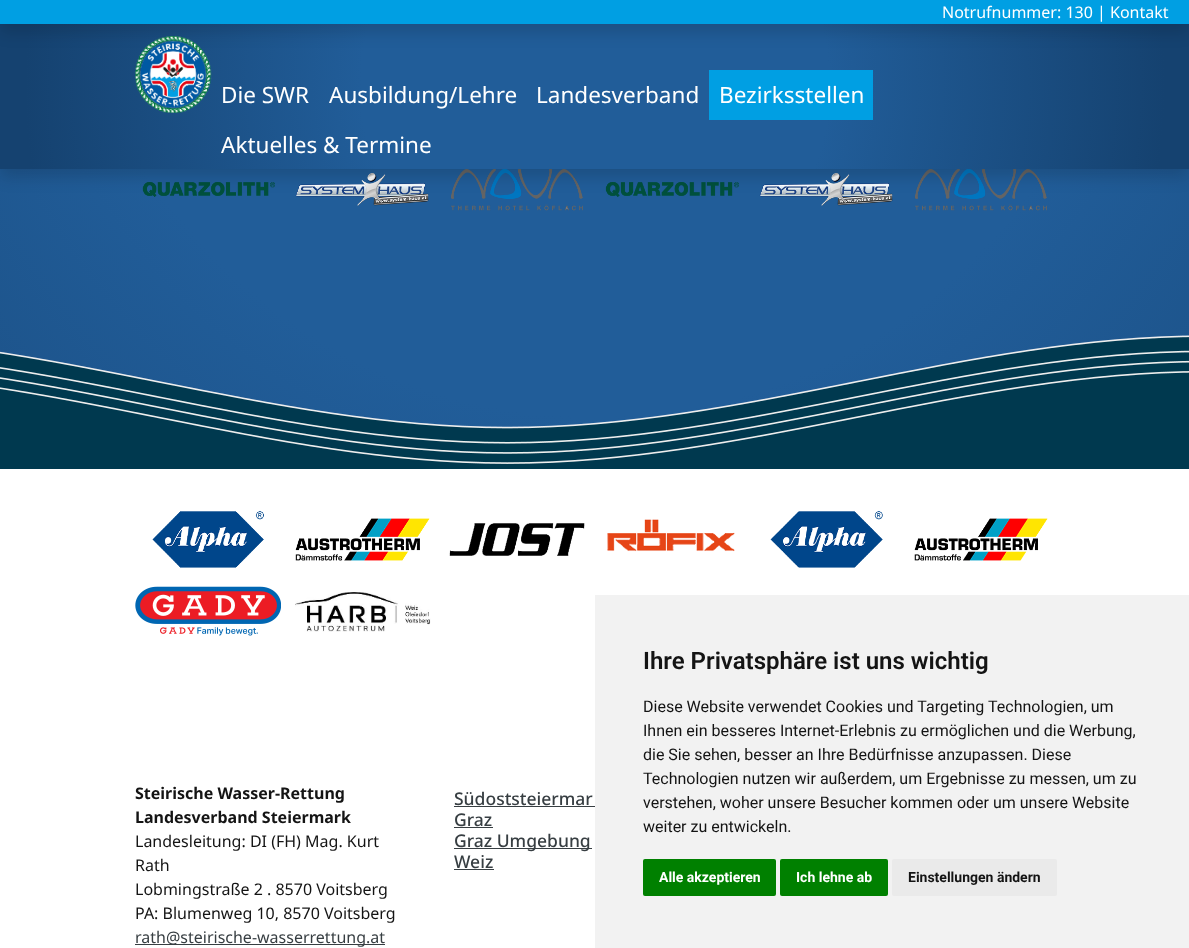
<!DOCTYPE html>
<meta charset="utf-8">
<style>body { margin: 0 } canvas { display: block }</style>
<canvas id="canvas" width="1189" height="948"></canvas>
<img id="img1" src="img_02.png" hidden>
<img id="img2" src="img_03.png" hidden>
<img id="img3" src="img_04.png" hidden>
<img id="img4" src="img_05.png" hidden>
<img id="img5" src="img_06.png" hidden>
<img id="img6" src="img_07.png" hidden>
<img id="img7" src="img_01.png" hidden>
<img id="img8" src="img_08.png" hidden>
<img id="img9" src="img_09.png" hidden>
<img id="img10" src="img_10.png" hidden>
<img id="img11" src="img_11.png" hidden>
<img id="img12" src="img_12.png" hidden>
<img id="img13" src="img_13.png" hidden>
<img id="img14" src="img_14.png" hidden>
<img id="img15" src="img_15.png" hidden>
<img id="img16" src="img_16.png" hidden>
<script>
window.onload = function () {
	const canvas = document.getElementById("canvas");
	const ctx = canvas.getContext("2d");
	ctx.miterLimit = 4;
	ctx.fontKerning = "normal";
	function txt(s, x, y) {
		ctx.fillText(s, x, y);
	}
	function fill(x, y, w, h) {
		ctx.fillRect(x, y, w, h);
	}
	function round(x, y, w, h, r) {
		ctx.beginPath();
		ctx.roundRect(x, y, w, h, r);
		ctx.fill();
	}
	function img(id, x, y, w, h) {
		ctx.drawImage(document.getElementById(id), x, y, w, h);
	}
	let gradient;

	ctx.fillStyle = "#FFFFFF";
	fill(0, 0, 1189, 948);
	gradient = ctx.createRadialGradient(595, -114, 0, 595, -114, 1361);
	gradient.addColorStop(0.39, "#215D99");
	gradient.addColorStop(0.95, "#154270");
	ctx.fillStyle = gradient;
	fill(0, 169, 1189, 259);
	img("img1", 142, 182, 133, 15);
	img("img2", 295, 173, 134, 33);
	img("img3", 450, 169, 133, 42);
	img("img4", 605, 182, 134, 15);
	img("img5", 759, 173, 134, 33);
	img("img6", 914, 169, 133, 42);
	ctx.fillStyle = "rgba(0, 0, 0, 0.15)";
	ctx.filter = "blur(8px)";
	ctx.beginPath();
	ctx.rect(0, 8, 1189, 169);
	ctx.fill();
	ctx.filter = "none";
	gradient = ctx.createRadialGradient(595, 85, 0, 595, 85, 600);
	gradient.addColorStop(0.39, "#215D99");
	gradient.addColorStop(0.95, "#154270");
	ctx.fillStyle = gradient;
	fill(0, 24, 1189, 145);
	ctx.fillStyle = "rgba(0, 0, 0, 0.15)";
	ctx.filter = "blur(8px)";
	ctx.beginPath();
	ctx.rect(0, 8, 1189, 24);
	ctx.fill();
	ctx.filter = "none";
	ctx.fillStyle = "#009FE3";
	fill(0, 0, 1189, 24);
	img("img7", 135, 36, 77, 77);
	fill(709, 70, 164, 50);
	img("img8", 0, 335, 1189, 134);
	img("img9", 152, 511, 112, 57);
	img("img10", 295, 518, 135, 43);
	img("img11", 449, 523, 136, 33);
	img("img12", 607, 519, 128, 33);
	img("img13", 770, 511, 113, 57);
	img("img14", 914, 518, 134, 43);
	img("img15", 135, 586, 146, 50);
	img("img16", 295, 592, 136, 40);
	ctx.fillStyle = "#373E42";
	fill(135, 944, 250, 1);
	fill(454, 806, 141, 1);
	fill(454, 827, 39, 1);
	fill(454, 848, 138, 1);
	fill(454, 869, 40, 1);
	ctx.fillStyle = "#F2F2F2";
	fill(595, 595, 594, 353);
	ctx.fillStyle = "#008000";
	round(643, 859, 133, 37, 2);
	round(780, 859, 108, 37, 2);
	ctx.fillStyle = "#EAEAEA";
	round(892, 859, 165, 37, 2);
	ctx.font = "16px Noto Sans";
	ctx.fillStyle = "#FFFFFF";
	txt("Notrufnummer: 130 | Kontakt", 942, 18);
	ctx.font = "22.5px Noto Sans";
	txt("Die SWR", 221, 103);
	txt("Ausbildung/Lehre", 329, 103);
	txt("Landesverband", 536, 103);
	txt("Bezirksstellen", 719, 103);
	txt("Aktuelles & Termine", 221, 153);
	ctx.font = "bold 16px Noto Sans";
	ctx.fillStyle = "#141414";
	txt("Steirische Wasser-Rettung", 135, 799);
	txt("Landesverband Steiermark", 135, 823);
	ctx.font = "16px Noto Sans";
	txt("Landesleitung: DI (FH) Mag. Kurt", 135, 847);
	txt("Rath", 135, 871);
	txt("Lobmingstraße 2 . 8570 Voitsberg", 135, 895);
	txt("PA: Blumenweg 10, 8570 Voitsberg", 135, 919);
	ctx.fillStyle = "#373E42";
	txt("rath@steirische-wasserrettung.at", 135, 943);
	ctx.font = "500 17.5px Noto Sans";
	txt("Südoststeiermar", 454, 805);
	txt("Graz", 454, 826);
	txt("Graz Umgebung", 454, 847);
	txt("Weiz", 454, 868);
	ctx.font = "600 24px Roboto";
	ctx.fillStyle = "#141414";
	txt("Ihre Privatsphäre ist uns wichtig", 643, 669);
	ctx.font = "16px Roboto";
	txt("Diese Website verwendet Cookies und Targeting Technologien, um", 643, 712);
	txt("Ihnen ein besseres Internet-Erlebnis zu ermöglichen und die Werbung,", 643, 736);
	txt("die Sie sehen, besser an Ihre Bedürfnisse anzupassen. Diese", 643, 760);
	txt("Technologien nutzen wir außerdem, um Ergebnisse zu messen, um zu", 643, 784);
	txt("verstehen, woher unsere Besucher kommen oder um unsere Website", 643, 808);
	txt("weiter zu entwickeln.", 643, 832);
	ctx.font = "bold 14px Roboto";
	ctx.fillStyle = "#FFFFFF";
	txt("Alle akzeptieren", 659, 882);
	txt("Ich lehne ab", 796, 882);
	ctx.fillStyle = "#141414";
	txt("Einstellungen ändern", 908, 882);
};
</script>
